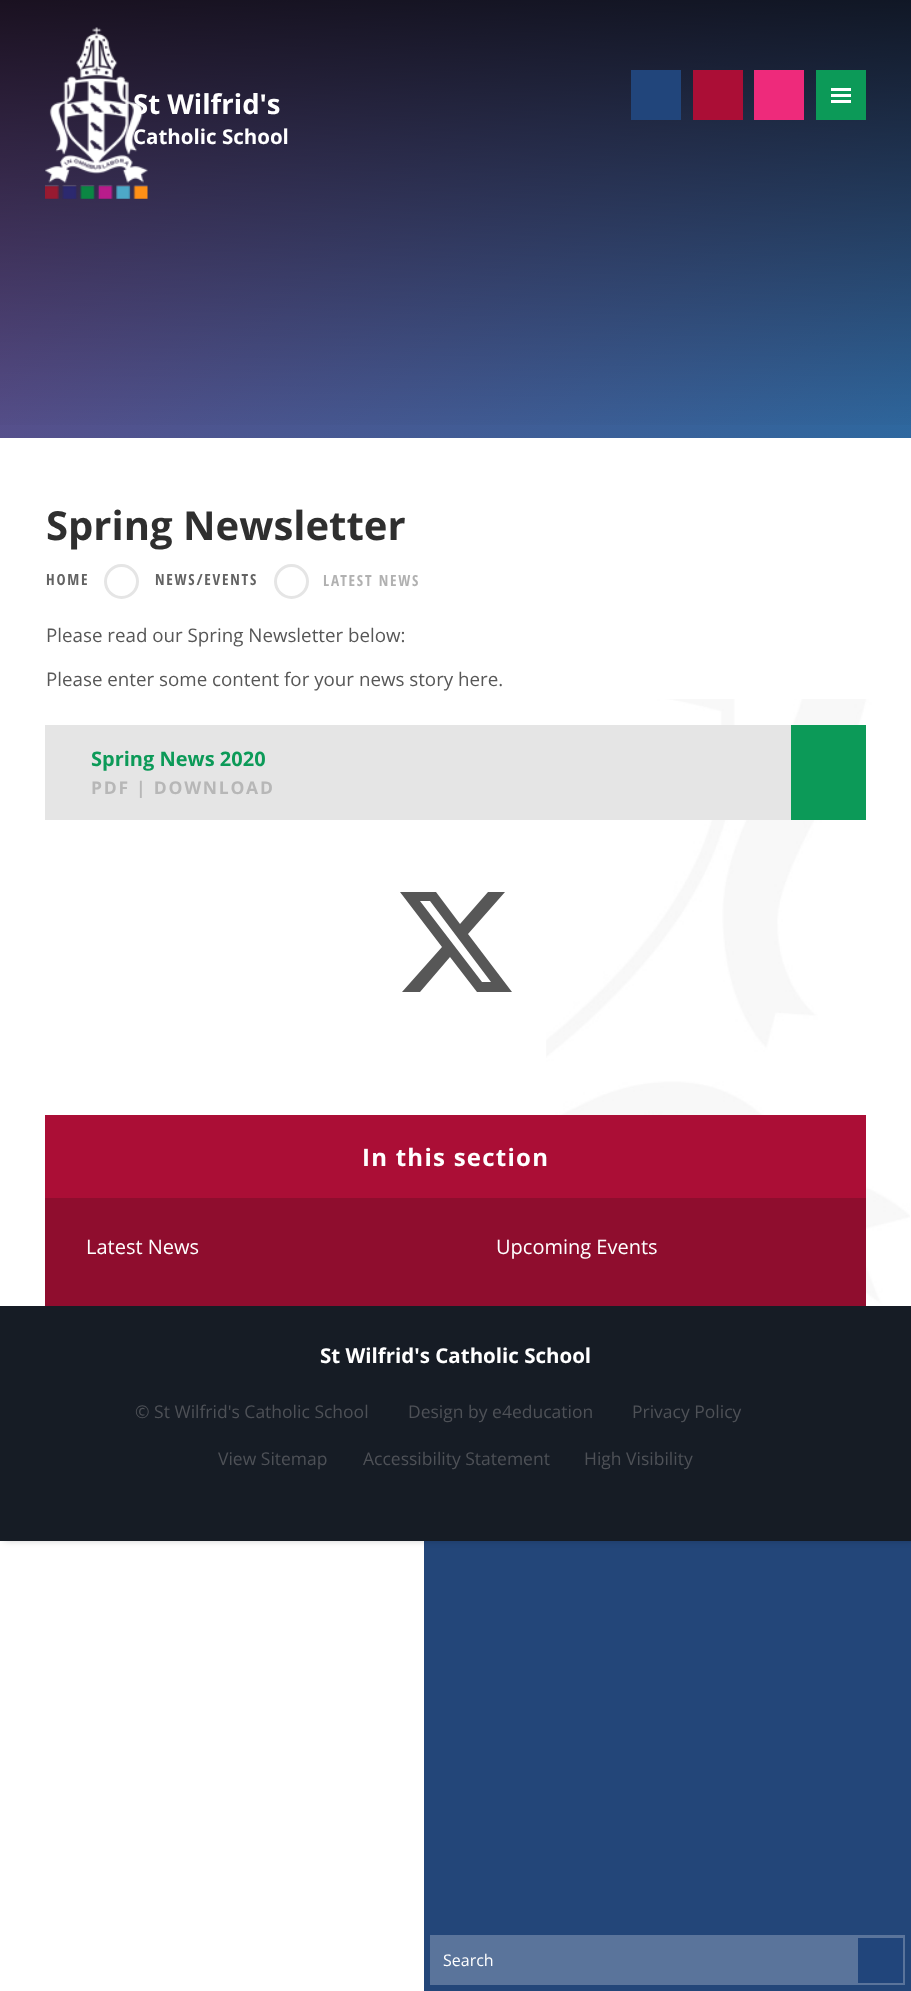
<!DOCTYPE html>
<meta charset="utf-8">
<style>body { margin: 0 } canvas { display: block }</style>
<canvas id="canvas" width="911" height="1991"></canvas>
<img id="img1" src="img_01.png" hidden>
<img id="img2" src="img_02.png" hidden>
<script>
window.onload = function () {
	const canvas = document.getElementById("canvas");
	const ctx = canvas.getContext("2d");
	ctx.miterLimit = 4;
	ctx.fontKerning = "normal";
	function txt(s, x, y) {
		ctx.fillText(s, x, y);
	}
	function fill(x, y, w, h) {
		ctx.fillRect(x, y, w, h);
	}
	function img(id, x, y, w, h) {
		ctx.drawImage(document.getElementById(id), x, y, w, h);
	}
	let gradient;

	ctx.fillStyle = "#FFFFFF";
	fill(0, 0, 911, 1991);
	ctx.fillStyle = "#234679";
	fill(424, 1541, 487, 450);
	ctx.fillStyle = "rgba(0, 0, 0, 0.19)";
	ctx.filter = "blur(3px)";
	ctx.beginPath();
	ctx.rect(4, 0, 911, 1541);
	ctx.fill();
	ctx.filter = "none";
	ctx.fillStyle = "#FFFFFF";
	fill(0, 438, 911, 868);
	gradient = ctx.createLinearGradient(118, -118, 793, 556);
	gradient.addColorStop(0, "#684482");
	gradient.addColorStop(1, "#2E689F");
	ctx.fillStyle = gradient;
	fill(0, 0, 911, 438);
	gradient = ctx.createLinearGradient(456, 0, 456, 438);
	gradient.addColorStop(0, "rgba(0, 0, 0, 0.75)");
	gradient.addColorStop(1, "rgba(0, 0, 0, 0)");
	ctx.fillStyle = gradient;
	fill(0, 0, 911, 425);
	img("img1", 45, 27, 103, 172);
	ctx.fillStyle = "#21457B";
	fill(631, 70, 50, 50);
	ctx.fillStyle = "#AB0E36";
	fill(693, 70, 50, 50);
	ctx.fillStyle = "#EE2A7B";
	fill(754, 70, 50, 50);
	ctx.fillStyle = "#0C9A58";
	fill(816, 70, 50, 50);
	ctx.fillStyle = "#FFFFFF";
	fill(831, 88, 20, 3);
	fill(831, 100, 20, 3);
	fill(831, 94, 20, 3);
	ctx.beginPath();
	ctx.arc(121.5, 581.5, 16, 0, Math.PI * 2);
	ctx.strokeStyle = "#E5E5E5";
	ctx.lineWidth = 3;
	ctx.stroke();
	ctx.beginPath();
	ctx.arc(291.5, 581.5, 16, 0, Math.PI * 2);
	ctx.stroke();
	img("img2", 546, 699, 364, 606);
	ctx.fillStyle = "#E5E5E5";
	fill(45, 725, 746, 95);
	ctx.fillStyle = "#0C9A58";
	fill(791, 725, 75, 95);
	ctx.fillStyle = "#575757";
	ctx.beginPath();
	ctx.moveTo(488, 892);
	ctx.lineTo(505, 892);
	ctx.lineTo(468, 934);
	ctx.lineTo(512, 992);
	ctx.lineTo(477, 992);
	ctx.lineTo(450, 957);
	ctx.lineTo(420, 992);
	ctx.lineTo(402, 992);
	ctx.lineTo(442, 947);
	ctx.lineTo(400, 892);
	ctx.lineTo(436, 892);
	ctx.lineTo(460, 924);
	ctx.closePath();
	ctx.moveTo(482, 982);
	ctx.lineTo(491, 982);
	ctx.lineTo(430, 901);
	ctx.lineTo(420, 901);
	ctx.closePath();
	ctx.fill();
	ctx.fillStyle = "#8F0D2E";
	fill(45, 1198, 821, 108);
	ctx.fillStyle = "#AB0E36";
	fill(45, 1115, 821, 83);
	ctx.fillStyle = "#161C25";
	fill(0, 1306, 911, 235);
	ctx.fillStyle = "#5A749B";
	fill(430, 1935, 475, 50);
	ctx.fillStyle = "#21457B";
	fill(858, 1938, 45, 45);
	ctx.font = "bold 27.5px Open Sans";
	ctx.fillStyle = "#FFFFFF";
	txt("St Wilfrid's", 133, 114);
	ctx.font = "bold 20.5px Open Sans";
	txt("Catholic School", 133, 144);
	ctx.font = "bold 40px Open Sans";
	ctx.fillStyle = "#2F2F2F";
	txt("Spring Newsletter", 46, 540);
	ctx.letterSpacing = "1.75px";
	ctx.font = "bold 15.25px Open Sans Condensed";
	ctx.fillStyle = "#636363";
	txt("HOME", 46, 585);
	txt("NEWS/EVENTS", 155, 585);
	ctx.fillStyle = "#B1B1B1";
	txt("LATEST NEWS", 323, 586);
	ctx.letterSpacing = "0px";
	ctx.font = "18.75px Open Sans";
	ctx.fillStyle = "#575757";
	txt("Please read our Spring Newsletter below:", 46, 642);
	txt("Please enter some content for your news story here.", 46, 686);
	ctx.font = "bold 20px Open Sans";
	ctx.fillStyle = "#0C9A58";
	txt("Spring News 2020", 91, 766);
	ctx.letterSpacing = "1.75px";
	ctx.font = "bold 17.5px Open Sans";
	ctx.fillStyle = "#B7B7B7";
	txt("PDF | DOWNLOAD", 91, 794);
	ctx.letterSpacing = "1.25px";
	ctx.font = "bold 24px Open Sans";
	ctx.fillStyle = "#FFFFFF";
	txt("In this section", 362, 1166);
	ctx.letterSpacing = "0px";
	ctx.font = "20px Open Sans";
	txt("Latest News", 86, 1254);
	txt("Upcoming Events", 496, 1254);
	ctx.font = "bold 20.5px Open Sans";
	txt("St Wilfrid's Catholic School", 320, 1363);
	ctx.font = "17.5px Open Sans";
	ctx.fillStyle = "#4E5157";
	txt("© St Wilfrid's Catholic School", 135, 1418);
	txt("Design by e4education", 408, 1418);
	txt("Privacy Policy", 632, 1418);
	txt("View Sitemap", 218, 1465);
	txt("Accessibility Statement", 363, 1465);
	txt("High Visibility", 584, 1465);
	ctx.font = "16px Open Sans";
	ctx.fillStyle = "#FFFFFF";
	txt("Search", 443, 1966);
};
</script>
